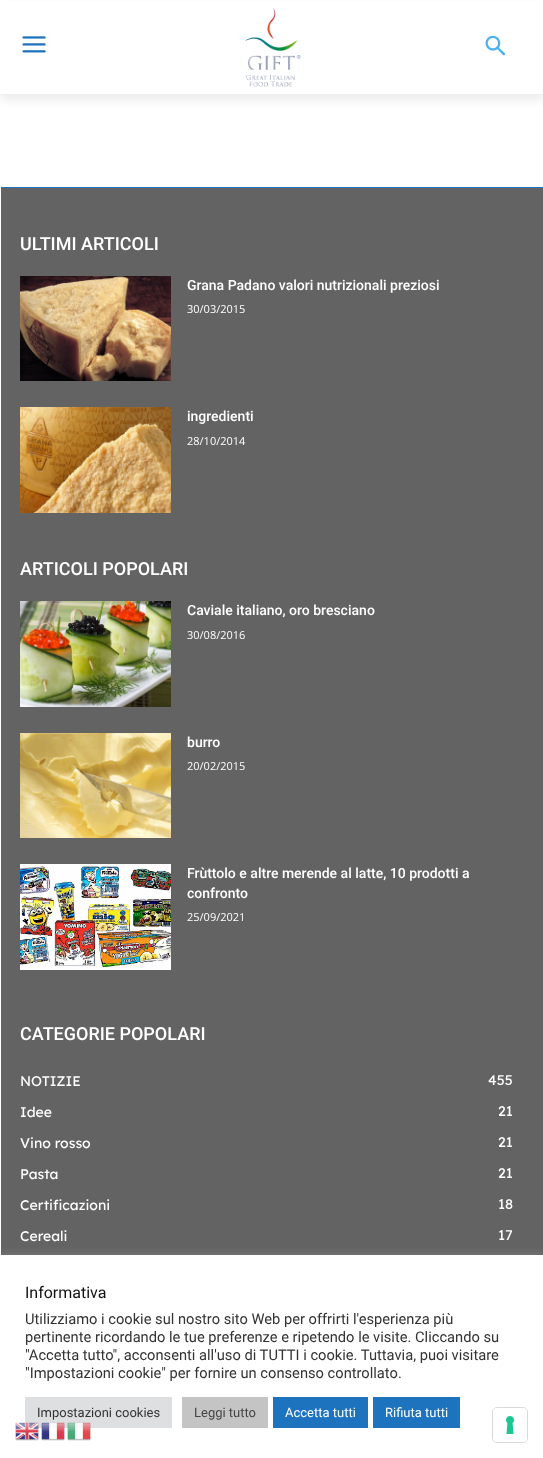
<!DOCTYPE html>
<meta charset="utf-8">
<style>body { margin: 0 } canvas { display: block }</style>
<canvas id="canvas" width="543" height="1458"></canvas>
<img id="img1" src="img_01.png" hidden>
<img id="img2" src="img_02.png" hidden>
<img id="img3" src="img_03.png" hidden>
<img id="img4" src="img_04.png" hidden>
<img id="img5" src="img_05.png" hidden>
<img id="img6" src="img_06.png" hidden>
<img id="img7" src="img_07.png" hidden>
<img id="img8" src="img_08.png" hidden>
<img id="img9" src="img_09.png" hidden>
<img id="img10" src="img_10.png" hidden>
<img id="img11" src="img_11.png" hidden>
<img id="img12" src="img_12.png" hidden>
<script>
window.onload = function () {
	const canvas = document.getElementById("canvas");
	const ctx = canvas.getContext("2d");
	ctx.miterLimit = 4;
	ctx.fontKerning = "normal";
	function txt(s, x, y) {
		ctx.fillText(s, x, y);
	}
	function fill(x, y, w, h) {
		ctx.fillRect(x, y, w, h);
	}
	function round(x, y, w, h, r) {
		ctx.beginPath();
		ctx.roundRect(x, y, w, h, r);
		ctx.fill();
	}
	function img(id, x, y, w, h) {
		ctx.drawImage(document.getElementById(id), x, y, w, h);
	}

	ctx.fillStyle = "#FFFFFF";
	fill(0, 0, 543, 1458);
	ctx.fillStyle = "rgba(0, 0, 0, 0.08)";
	ctx.filter = "blur(4px)";
	ctx.beginPath();
	ctx.rect(1, 6, 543, 94);
	ctx.fill();
	ctx.filter = "none";
	ctx.fillStyle = "#FFFFFF";
	fill(0, 1, 543, 93);
	img("img1", 22, 36, 24, 17);
	img("img2", 245, 8, 56, 79);
	img("img3", 485, 35, 21, 21);
	ctx.fillStyle = "#1E73BE";
	fill(1, 187, 542, 1);
	ctx.fillStyle = "#636363";
	fill(1, 188, 542, 1067);
	img("img4", 20, 276, 151, 105);
	img("img5", 20, 407, 151, 106);
	img("img6", 20, 601, 151, 106);
	img("img7", 20, 733, 151, 105);
	img("img8", 20, 864, 151, 106);
	ctx.fillStyle = "rgba(172, 171, 171, 0.3)";
	ctx.filter = "blur(5px)";
	ctx.beginPath();
	ctx.rect(0, 1254, 543, 203);
	ctx.fill();
	ctx.filter = "none";
	ctx.fillStyle = "#FFFFFF";
	fill(0, 1255, 543, 203);
	ctx.fillStyle = "#DEDFE0";
	fill(25, 1397, 147, 31);
	ctx.fillStyle = "#C4C4C4";
	fill(182, 1397, 86, 31);
	ctx.fillStyle = "#1E73BE";
	fill(273, 1397, 95, 31);
	fill(373, 1397, 87, 31);
	img("img9", 15, 1422, 24, 19);
	img("img10", 41, 1422, 24, 19);
	img("img11", 67, 1422, 24, 19);
	ctx.beginPath();
	ctx.roundRect(492.5, 1407.5, 35, 35, 4.5);
	ctx.strokeStyle = "#D9D9D9";
	ctx.stroke();
	ctx.fillStyle = "#FFFFFF";
	round(493, 1408, 34, 34, 4);
	img("img12", 506, 1416, 8, 18);
	ctx.font = "500 18px Roboto";
	txt("ULTIMI ARTICOLI", 20, 250);
	ctx.font = "500 14px Roboto";
	txt("Grana Padano valori nutrizionali preziosi", 187, 290);
	ctx.font = "11px Open Sans";
	txt("30/03/2015", 187, 313);
	ctx.font = "500 14px Roboto";
	txt("ingredienti", 187, 421);
	ctx.font = "11px Open Sans";
	txt("28/10/2014", 187, 445);
	ctx.font = "500 18px Roboto";
	txt("ARTICOLI POPOLARI", 20, 575);
	ctx.font = "500 14px Roboto";
	txt("Caviale italiano, oro bresciano", 187, 615);
	ctx.font = "11px Open Sans";
	txt("30/08/2016", 187, 639);
	ctx.font = "500 14px Roboto";
	txt("burro", 187, 747);
	ctx.font = "11px Open Sans";
	txt("20/02/2015", 187, 770);
	ctx.font = "500 14px Roboto";
	txt("Frùttolo e altre merende al latte, 10 prodotti a", 187, 878);
	txt("confronto", 187, 898);
	ctx.font = "11px Open Sans";
	txt("25/09/2021", 187, 921);
	ctx.font = "500 18px Roboto";
	txt("CATEGORIE POPOLARI", 20, 1040);
	ctx.font = "14px Lexend";
	txt("NOTIZIE", 20, 1086);
	txt("455", 488, 1085);
	txt("Idee", 20, 1117);
	txt("21", 498, 1116);
	txt("Vino rosso", 20, 1148);
	txt("21", 498, 1147);
	txt("Pasta", 20, 1179);
	txt("21", 498, 1178);
	txt("Certificazioni", 20, 1210);
	txt("18", 498, 1209);
	txt("Cereali", 20, 1241);
	txt("17", 498, 1240);
	ctx.font = "16px Roboto";
	ctx.fillStyle = "#111111";
	txt("Informativa", 25, 1298);
	ctx.font = "14.7px Roboto";
	ctx.fillStyle = "#333333";
	txt("Utilizziamo i cookie sul nostro sito Web per offrirti l'esperienza più", 25, 1324);
	txt("pertinente ricordando le tue preferenze e ripetendo le visite. Cliccando su", 25, 1342);
	txt("\"Accetta tutto\", acconsenti all'uso di TUTTI i cookie. Tuttavia, puoi visitare", 25, 1360);
	txt("\"Impostazioni cookie\" per fornire un consenso controllato.", 25, 1378);
	ctx.font = "13px Roboto";
	txt("Impostazioni cookies", 37, 1417);
	ctx.fillStyle = "#444444";
	txt("Leggi tutto", 194, 1417);
	ctx.fillStyle = "#FFFFFF";
	txt("Accetta tutti", 285, 1417);
	txt("Rifiuta tutti", 385, 1417);
};
</script>
